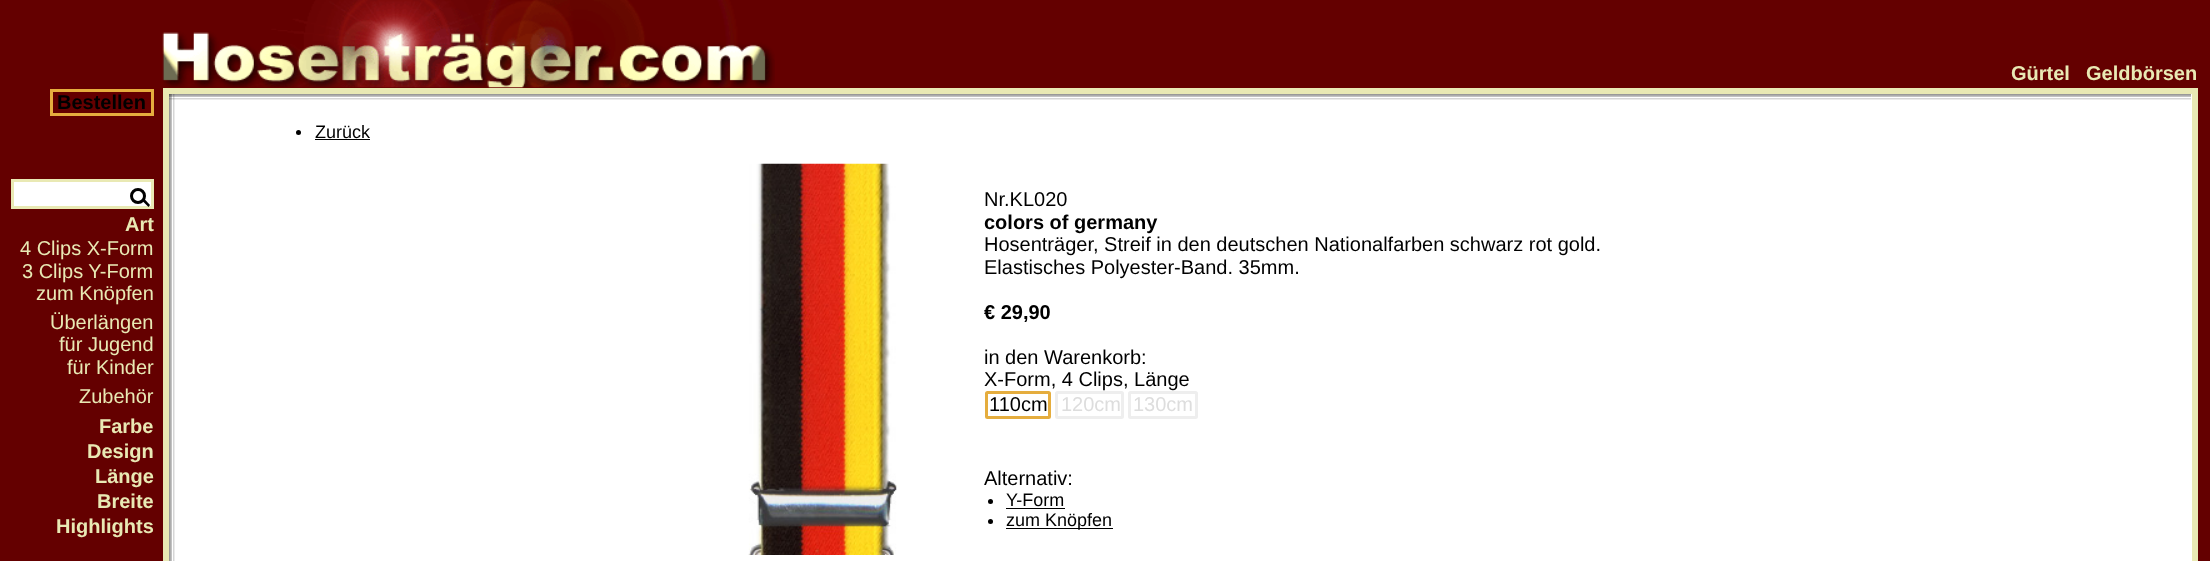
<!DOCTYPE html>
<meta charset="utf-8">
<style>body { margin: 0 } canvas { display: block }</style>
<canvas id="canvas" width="2210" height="561"></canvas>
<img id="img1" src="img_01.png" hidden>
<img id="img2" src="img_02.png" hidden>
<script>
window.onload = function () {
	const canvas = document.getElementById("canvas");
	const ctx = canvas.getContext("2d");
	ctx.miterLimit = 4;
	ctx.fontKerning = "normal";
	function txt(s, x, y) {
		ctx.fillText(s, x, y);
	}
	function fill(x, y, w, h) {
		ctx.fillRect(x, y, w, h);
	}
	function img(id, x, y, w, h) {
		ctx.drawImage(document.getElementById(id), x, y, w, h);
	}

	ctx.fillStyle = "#640000";
	fill(0, 0, 2210, 561);
	img("img1", 162, 0, 613, 88);
	ctx.strokeStyle = "#E5AD3E";
	ctx.lineWidth = 3;
	ctx.strokeRect(51.5, 90.5, 101, 24);
	ctx.fillStyle = "#FFFFFF";
	ctx.beginPath();
	ctx.rect(12.5, 180.5, 140, 27);
	ctx.fill();
	ctx.strokeStyle = "#E9E9B4";
	ctx.stroke();
	ctx.beginPath();
	ctx.arc(138, 196, 6.5, 0, Math.PI * 2);
	ctx.strokeStyle = "#000000";
	ctx.stroke();
	ctx.fillStyle = "#000000";
	ctx.beginPath();
	ctx.moveTo(143.5, 198);
	ctx.lineTo(150, 205);
	ctx.lineTo(148.5, 207);
	ctx.lineTo(141.5, 200);
	ctx.closePath();
	ctx.fill();
	ctx.fillStyle = "#FFFFFF";
	fill(172, 94, 2020, 467);
	ctx.fillStyle = "#EBEBEB";
	fill(169, 99, 2022, 1);
	ctx.fillStyle = "#D6D6D6";
	fill(169, 98, 2022, 1);
	ctx.fillStyle = "#C2C2C2";
	fill(169, 96, 2022, 1);
	ctx.fillStyle = "#ADADAD";
	fill(169, 95, 2022, 1);
	ctx.fillStyle = "#999999";
	fill(169, 94, 2022, 1);
	ctx.strokeStyle = "#E9E9B4";
	ctx.lineWidth = 6;
	ctx.strokeRect(166, 91, 2029, 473);
	fill(169, 94, 1, 467);
	ctx.fillStyle = "#8D8D8D";
	fill(169, 99, 1, 1);
	ctx.fillStyle = "#818181";
	fill(169, 98, 1, 1);
	ctx.fillStyle = "#747474";
	fill(169, 96, 1, 1);
	ctx.fillStyle = "#686868";
	fill(169, 95, 1, 1);
	ctx.fillStyle = "#5C5C5C";
	fill(169, 94, 1, 1);
	ctx.fillStyle = "#ADADAD";
	fill(170, 94, 1, 467);
	ctx.fillStyle = "#9F9F9F";
	fill(170, 99, 1, 1);
	ctx.fillStyle = "#919191";
	fill(170, 98, 1, 1);
	ctx.fillStyle = "#838383";
	fill(170, 96, 1, 1);
	ctx.fillStyle = "#767676";
	fill(170, 95, 1, 1);
	ctx.fillStyle = "#686868";
	fill(170, 94, 1, 1);
	ctx.fillStyle = "#C2C2C2";
	fill(171, 94, 1, 467);
	ctx.fillStyle = "#B2B2B2";
	fill(171, 99, 1, 1);
	ctx.fillStyle = "#A3A3A3";
	fill(171, 98, 1, 1);
	ctx.fillStyle = "#939393";
	fill(171, 96, 1, 1);
	ctx.fillStyle = "#848484";
	fill(171, 95, 1, 1);
	ctx.fillStyle = "#747474";
	fill(171, 94, 1, 1);
	ctx.fillStyle = "#D6D6D6";
	fill(173, 94, 1, 467);
	ctx.fillStyle = "#C5C5C5";
	fill(173, 99, 1, 1);
	ctx.fillStyle = "#B4B4B4";
	fill(173, 98, 1, 1);
	ctx.fillStyle = "#A3A3A3";
	fill(173, 96, 1, 1);
	ctx.fillStyle = "#929292";
	fill(173, 95, 1, 1);
	ctx.fillStyle = "#808080";
	fill(173, 94, 1, 1);
	ctx.fillStyle = "#EBEBEB";
	fill(174, 94, 1, 467);
	ctx.fillStyle = "#D8D8D8";
	fill(174, 99, 1, 1);
	ctx.fillStyle = "#C5C5C5";
	fill(174, 98, 1, 1);
	ctx.fillStyle = "#B3B3B3";
	fill(174, 96, 1, 1);
	ctx.fillStyle = "#A0A0A0";
	fill(174, 95, 1, 1);
	ctx.fillStyle = "#8D8D8D";
	fill(174, 94, 1, 1);
	ctx.fillStyle = "#000000";
	ctx.beginPath();
	ctx.arc(298.5, 132.5, 2.5, 0, Math.PI * 2);
	ctx.fill();
	fill(315, 139, 55, 1);
	img("img2", 748, 163, 149, 392);
	ctx.beginPath();
	ctx.roundRect(986.5, 392.5, 63, 25, 1);
	ctx.strokeStyle = "#E5AD3E";
	ctx.lineWidth = 3;
	ctx.stroke();
	ctx.beginPath();
	ctx.roundRect(1056.5, 392.5, 66, 25, 1);
	ctx.strokeStyle = "#EEEEEE";
	ctx.stroke();
	ctx.beginPath();
	ctx.roundRect(1129.5, 392.5, 67, 25, 1);
	ctx.stroke();
	ctx.beginPath();
	ctx.arc(990.5, 501.5, 2.5, 0, Math.PI * 2);
	ctx.fill();
	fill(1006, 508, 59, 1);
	ctx.beginPath();
	ctx.arc(990.5, 521.5, 2.5, 0, Math.PI * 2);
	ctx.fill();
	fill(1006, 528, 107, 1);
	ctx.font = "bold 20px Liberation Sans";
	ctx.fillStyle = "#E9E9B4";
	txt("Gürtel", 2011, 80);
	txt("Geldbörsen", 2086, 80);
	ctx.fillStyle = "#000000";
	txt("Bestellen", 57, 109);
	ctx.fillStyle = "#E9E9B4";
	txt("Art", 125, 231);
	ctx.font = "20px Liberation Sans";
	txt("4 Clips X-Form", 20, 255);
	txt("3 Clips Y-Form", 22, 278);
	txt("zum Knöpfen", 36, 300);
	txt("Überlängen", 50, 329);
	txt("für Jugend", 59, 351);
	txt("für Kinder", 67, 374);
	txt("Zubehör", 79, 403);
	ctx.font = "bold 20px Liberation Sans";
	txt("Farbe", 99, 433);
	txt("Design", 87, 458);
	txt("Länge", 95, 483);
	txt("Breite", 97, 508);
	txt("Highlights", 56, 533);
	ctx.font = "18px Liberation Sans";
	ctx.fillStyle = "#000000";
	txt("Zurück", 315, 138);
	ctx.font = "20px Liberation Sans";
	txt("Nr.KL020", 984, 206);
	ctx.font = "bold 20px Liberation Sans";
	txt("colors of germany", 984, 229);
	ctx.font = "20px Liberation Sans";
	txt("Hosenträger, Streif in den deutschen Nationalfarben schwarz rot gold.", 984, 251);
	txt("Elastisches Polyester-Band. 35mm.", 984, 274);
	ctx.font = "bold 20px Liberation Sans";
	txt("€ 29,90", 984, 319);
	ctx.font = "20px Liberation Sans";
	txt("in den Warenkorb:", 984, 364);
	txt("X-Form, 4 Clips, Länge", 984, 386);
	txt("110cm", 989, 411);
	ctx.fillStyle = "#DDDDDD";
	txt("120cm", 1061, 411);
	txt("130cm", 1133, 411);
	ctx.fillStyle = "#000000";
	txt("Alternativ:", 984, 485);
	ctx.font = "18px Liberation Sans";
	txt("Y-Form", 1006, 506);
	txt("zum Knöpfen", 1006, 526);
};
</script>
